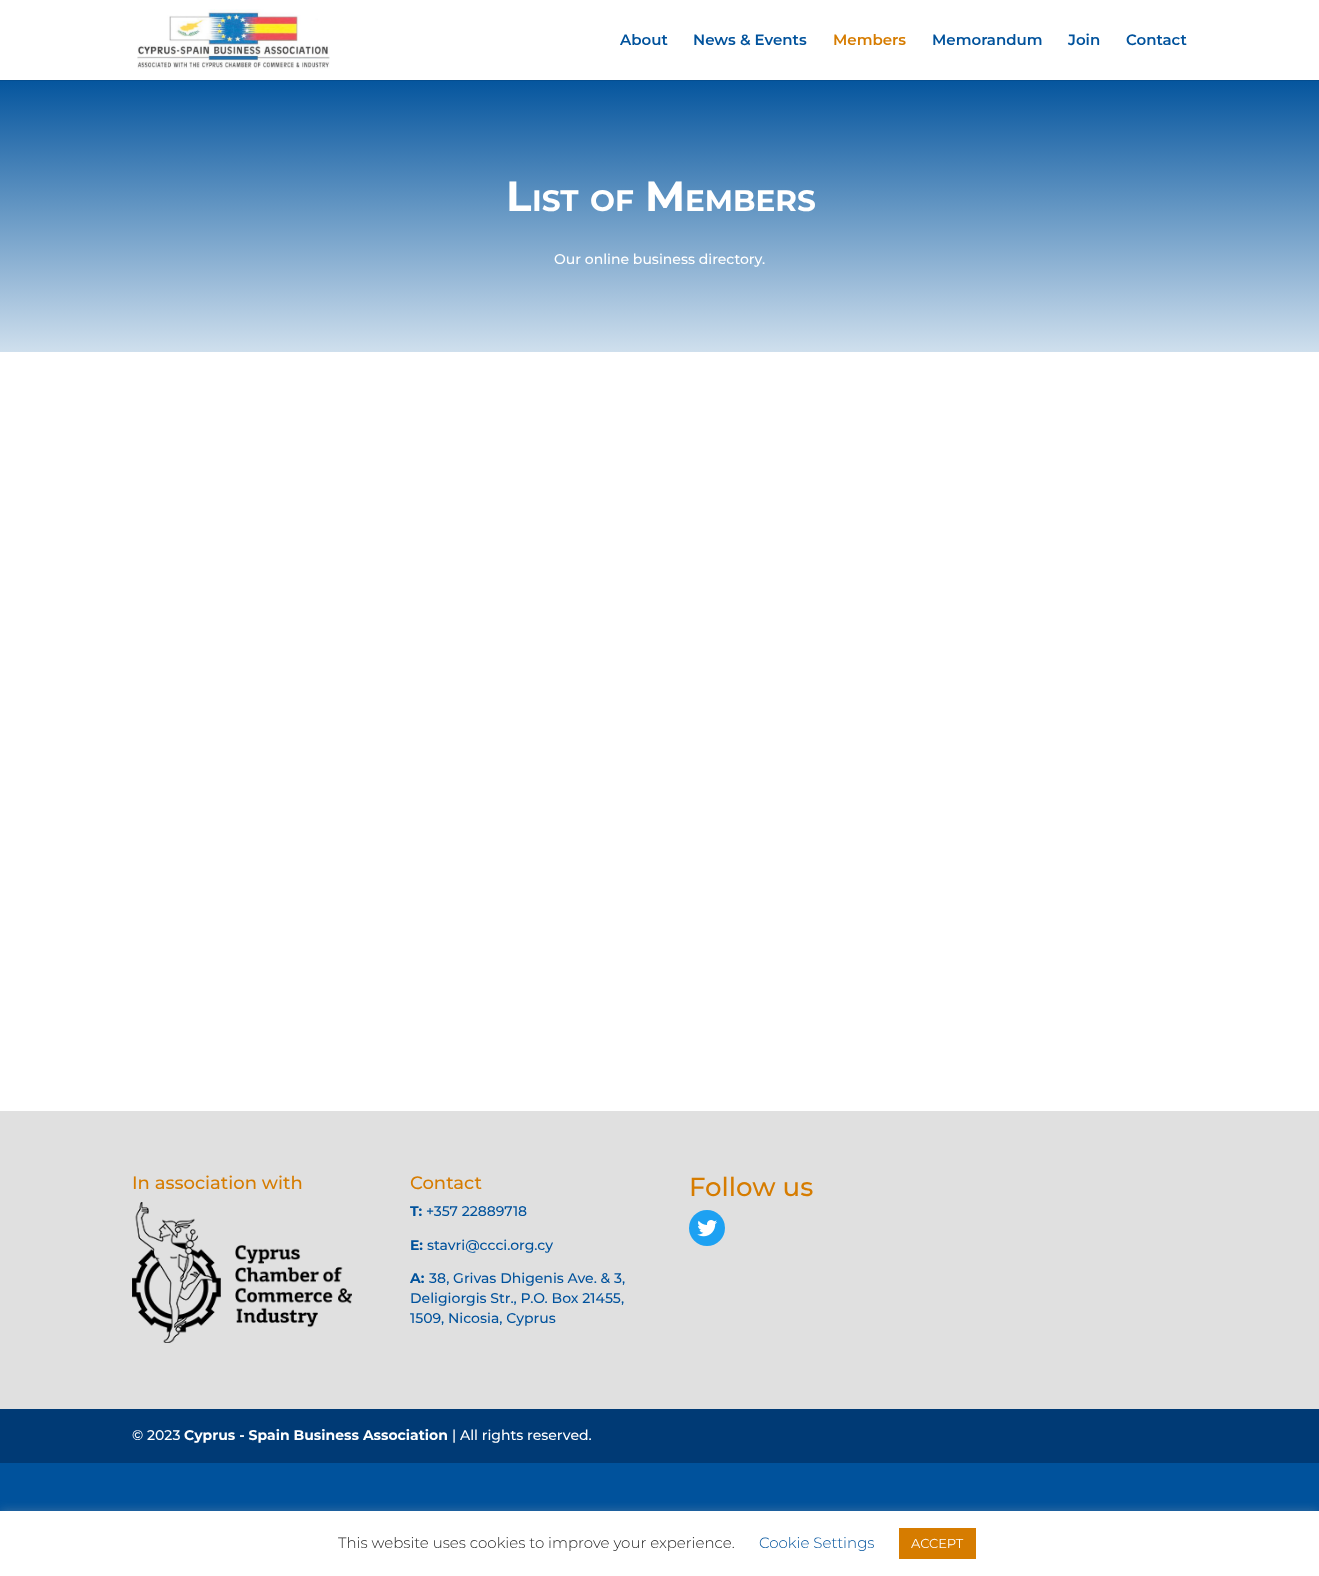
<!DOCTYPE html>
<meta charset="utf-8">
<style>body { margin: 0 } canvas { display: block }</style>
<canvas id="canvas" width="1319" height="1576"></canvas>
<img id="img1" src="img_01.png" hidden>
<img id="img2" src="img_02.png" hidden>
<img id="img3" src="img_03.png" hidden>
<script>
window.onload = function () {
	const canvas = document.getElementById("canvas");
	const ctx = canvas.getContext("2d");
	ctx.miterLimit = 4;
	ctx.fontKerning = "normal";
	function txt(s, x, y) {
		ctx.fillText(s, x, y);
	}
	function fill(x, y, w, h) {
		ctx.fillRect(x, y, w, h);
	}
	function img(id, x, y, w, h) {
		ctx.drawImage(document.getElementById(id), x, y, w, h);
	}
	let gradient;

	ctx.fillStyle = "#00529C";
	fill(0, 0, 1319, 1576);
	ctx.fillStyle = "#054D8E";
	fill(0, 80, 1319, 1);
	ctx.fillStyle = "#FFFFFF";
	fill(0, 0, 1319, 80);
	img("img1", 137, 9, 193, 60);
	gradient = ctx.createLinearGradient(660, 74, 660, 352);
	gradient.addColorStop(0, "#00529C");
	gradient.addColorStop(1, "#CFDFED");
	ctx.fillStyle = gradient;
	fill(0, 81, 1319, 271);
	ctx.fillStyle = "#FFFFFF";
	fill(0, 352, 1319, 759);
	ctx.fillStyle = "#E0E0E0";
	fill(0, 1111, 1319, 298);
	img("img2", 132, 1202, 220, 141);
	ctx.fillStyle = "#1DA1F2";
	ctx.beginPath();
	ctx.arc(707, 1228, 18, 0, Math.PI * 2);
	ctx.fill();
	img("img3", 697, 1220, 20, 17);
	ctx.fillStyle = "#003A75";
	fill(0, 1409, 1319, 54);
	ctx.fillStyle = "rgba(172, 171, 171, 0.3)";
	ctx.filter = "blur(5px)";
	ctx.beginPath();
	ctx.rect(0, 1510, 1319, 65);
	ctx.fill();
	ctx.filter = "none";
	ctx.fillStyle = "#FFFFFF";
	fill(0, 1511, 1319, 65);
	ctx.fillStyle = "#D67C00";
	fill(899, 1528, 77, 31);
	ctx.font = "100 15px 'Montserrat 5'";
	ctx.fillStyle = "#00529C";
	txt("About", 620, 45);
	txt("News & Events", 693, 45);
	ctx.fillStyle = "#D67C00";
	txt("Members", 833, 45);
	ctx.fillStyle = "#00529C";
	txt("Memorandum", 932, 45);
	txt("Join", 1068, 45);
	txt("Contact", 1126, 45);
	ctx.font = "100 42px 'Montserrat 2'";
	ctx.fillStyle = "#FFFFFF";
	txt("L", 506, 211);
	ctx.font = "100 29.5px 'Montserrat 2'";
	txt("IST", 532, 211);
	txt("OF", 590, 211);
	ctx.font = "100 42px 'Montserrat 2'";
	txt("M", 645, 211);
	ctx.font = "100 29.5px 'Montserrat 2'";
	txt("EMBERS", 685, 211);
	ctx.font = "100 14px Montserrat";
	txt("Our online business directory.", 554, 264);
	ctx.font = "100 18px Montserrat";
	ctx.fillStyle = "#D67C00";
	txt("In association with", 132, 1189);
	txt("Contact", 410, 1189);
	ctx.font = "100 14px 'Montserrat 2'";
	ctx.fillStyle = "#00529C";
	txt("T:", 410, 1216);
	ctx.font = "100 14px Montserrat";
	txt("+357 22889718", 426, 1216);
	ctx.font = "100 14px 'Montserrat 2'";
	txt("E:", 410, 1250);
	ctx.font = "100 14px Montserrat";
	txt("stavri@ccci.org.cy", 427, 1250);
	ctx.font = "100 14px 'Montserrat 2'";
	txt("A:", 410, 1283);
	ctx.font = "100 14px Montserrat";
	txt("38, Grivas Dhigenis Ave. & 3,", 429, 1283);
	txt("Deligiorgis Str., P.O. Box 21455,", 410, 1303);
	txt("1509, Nicosia, Cyprus", 410, 1323);
	ctx.font = "100 26px Montserrat";
	ctx.fillStyle = "#D67C00";
	txt("Follow us", 689, 1196);
	ctx.font = "100 14px Montserrat";
	ctx.fillStyle = "#FFFFFF";
	txt("© 2023", 132, 1440);
	ctx.font = "100 14px 'Montserrat 2'";
	txt("Cyprus - Spain Business Association", 184, 1440);
	ctx.font = "100 14px Montserrat";
	txt("| All rights reserved.", 452, 1440);
	ctx.font = "100 15px 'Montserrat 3'";
	ctx.fillStyle = "#1F1F1F";
	txt("This website uses cookies to improve your experience.", 338, 1548);
	ctx.fillStyle = "#00529C";
	txt("Cookie Settings", 759, 1548);
	ctx.font = "100 13px 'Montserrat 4'";
	ctx.fillStyle = "#FFFFFF";
	txt("ACCEPT", 911, 1548);
};
</script>
